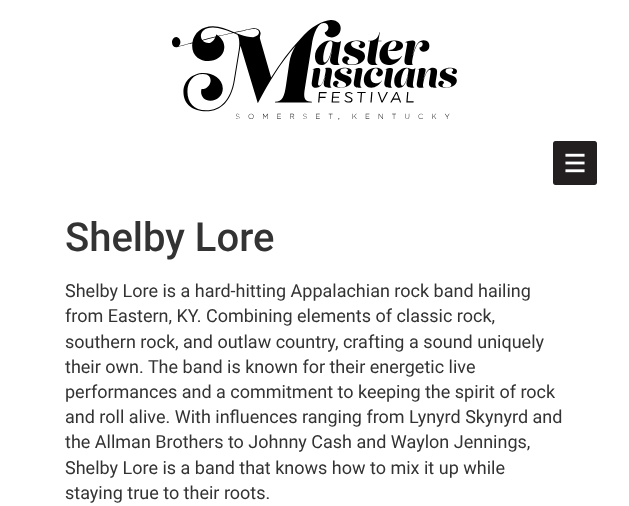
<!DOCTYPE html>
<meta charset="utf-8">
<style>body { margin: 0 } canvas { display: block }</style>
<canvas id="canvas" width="629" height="506"></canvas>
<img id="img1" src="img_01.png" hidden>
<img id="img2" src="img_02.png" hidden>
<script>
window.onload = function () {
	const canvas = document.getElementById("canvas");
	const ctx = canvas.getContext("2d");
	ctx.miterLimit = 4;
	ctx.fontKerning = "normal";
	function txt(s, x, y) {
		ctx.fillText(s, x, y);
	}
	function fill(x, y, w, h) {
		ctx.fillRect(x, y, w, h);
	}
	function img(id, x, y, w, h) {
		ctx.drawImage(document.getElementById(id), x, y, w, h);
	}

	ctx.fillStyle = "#FFFFFF";
	fill(0, 0, 629, 506);
	img("img1", 172, 20, 285, 100);
	img("img2", 553, 141, 44, 44);
	ctx.font = "500 40px Roboto";
	ctx.fillStyle = "#333333";
	txt("Shelby Lore", 65, 251);
	ctx.font = "18px Roboto";
	txt("Shelby Lore is a hard-hitting Appalachian rock band hailing", 65, 297);
	txt("from Eastern, KY. Combining elements of classic rock,", 65, 322);
	txt("southern rock, and outlaw country, crafting a sound uniquely", 65, 348);
	txt("their own. The band is known for their energetic live", 65, 373);
	txt("performances and a commitment to keeping the spirit of rock", 65, 398);
	txt("and roll alive. With influences ranging from Lynyrd Skynyrd and", 65, 423);
	txt("the Allman Brothers to Johnny Cash and Waylon Jennings,", 65, 448);
	txt("Shelby Lore is a band that knows how to mix it up while", 65, 474);
	txt("staying true to their roots.", 65, 499);
};
</script>
